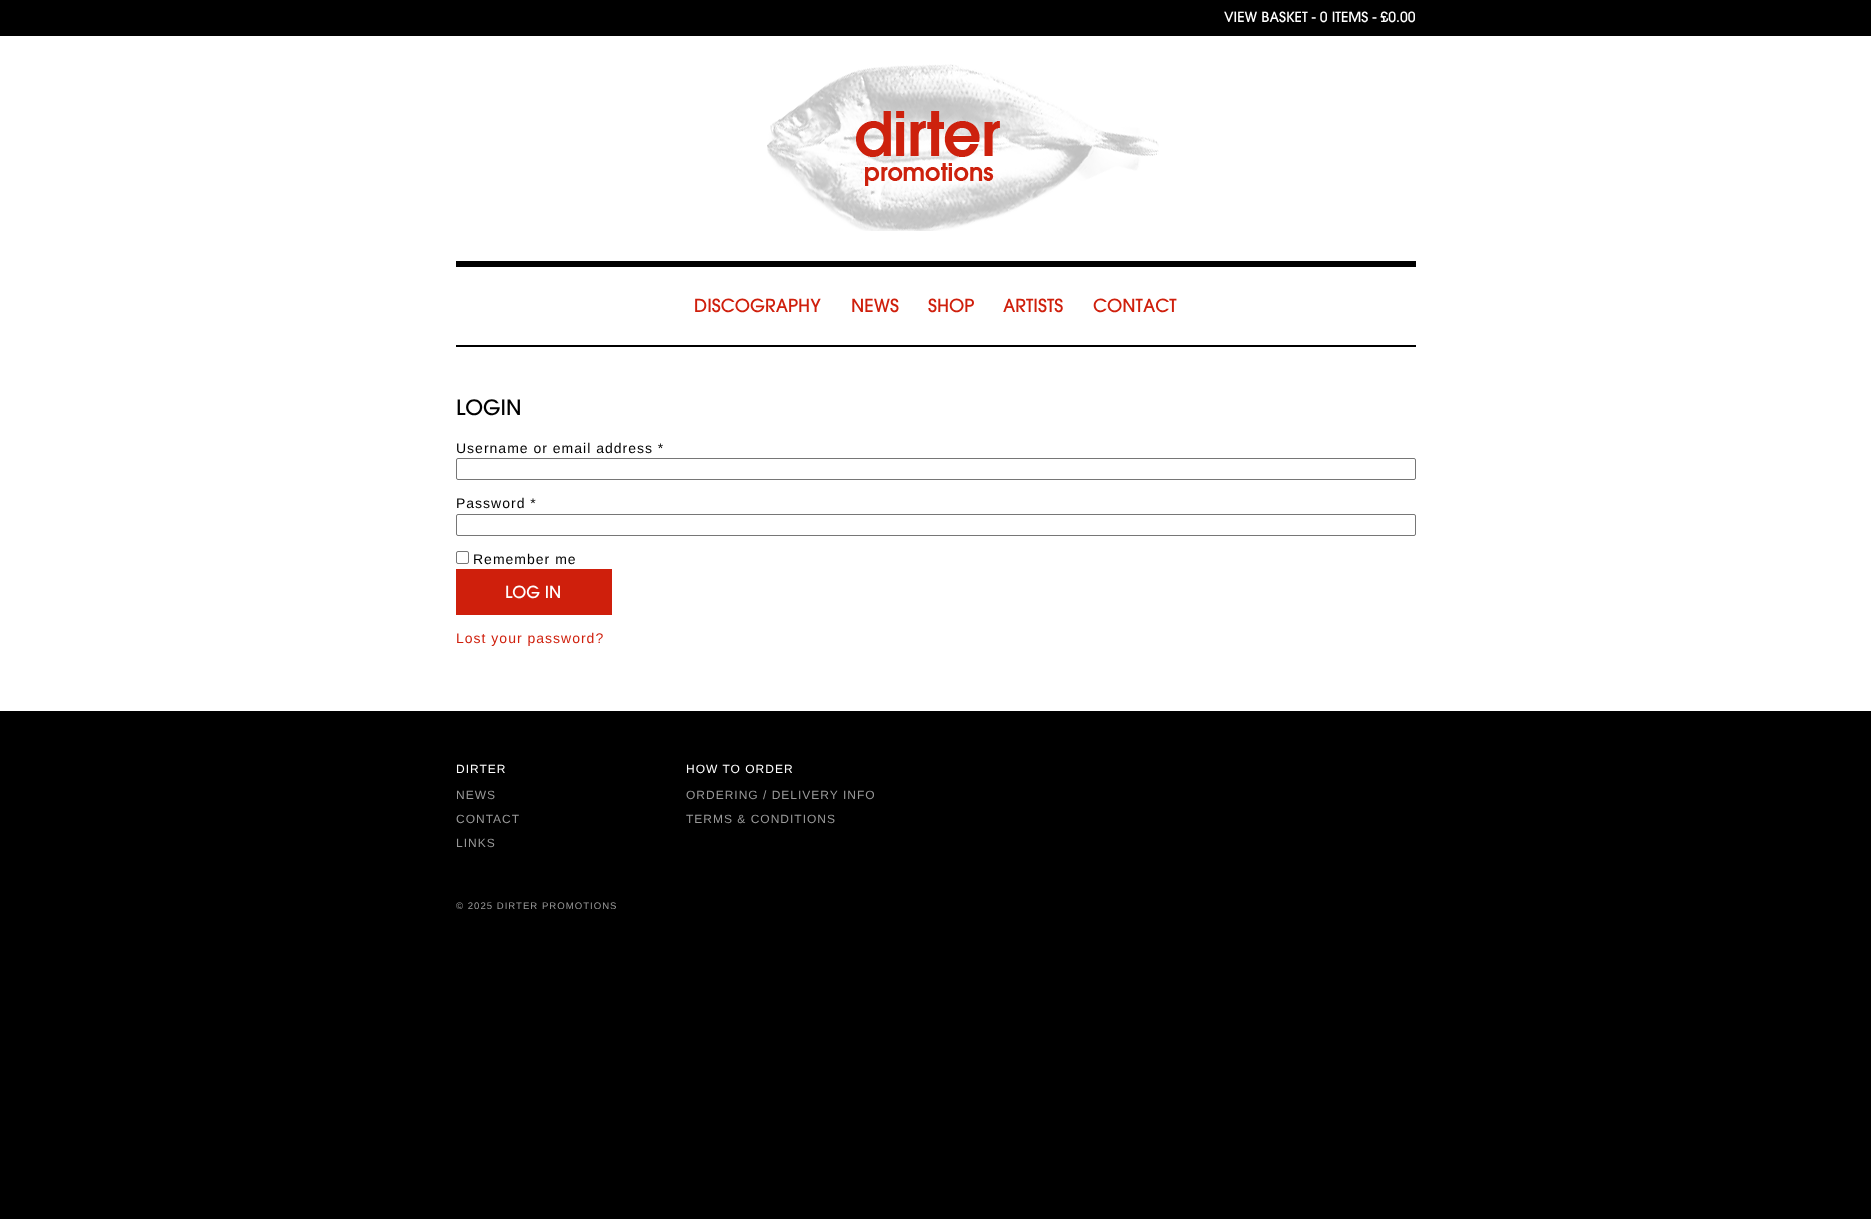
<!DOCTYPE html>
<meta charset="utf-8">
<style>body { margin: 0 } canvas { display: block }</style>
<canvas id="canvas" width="1871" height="1219"></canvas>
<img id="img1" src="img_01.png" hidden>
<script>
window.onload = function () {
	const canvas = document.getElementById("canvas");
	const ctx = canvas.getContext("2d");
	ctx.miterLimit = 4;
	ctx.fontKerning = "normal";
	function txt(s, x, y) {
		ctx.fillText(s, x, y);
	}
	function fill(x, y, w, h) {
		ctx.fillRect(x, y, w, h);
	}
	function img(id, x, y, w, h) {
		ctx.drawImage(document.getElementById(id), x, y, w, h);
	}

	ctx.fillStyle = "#000000";
	fill(0, 0, 1871, 1219);
	ctx.fillStyle = "#FFFFFF";
	fill(0, 36, 1871, 675);
	img("img1", 767, 64, 392, 167);
	ctx.fillStyle = "#000000";
	fill(456, 261, 960, 6);
	fill(456, 345, 960, 2);
	ctx.beginPath();
	ctx.roundRect(456.5, 458.5, 959, 21, 1.5);
	ctx.strokeStyle = "#767676";
	ctx.stroke();
	ctx.beginPath();
	ctx.roundRect(456.5, 514.5, 959, 21, 1.5);
	ctx.stroke();
	ctx.beginPath();
	ctx.roundRect(456.5, 551.5, 12, 12, 1.5);
	ctx.stroke();
	ctx.fillStyle = "#CF1F0C";
	fill(456, 569, 156, 46);
	ctx.font = "14px 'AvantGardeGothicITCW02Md'";
	ctx.fillStyle = "#FFFFFF";
	txt("VIEW BASKET - 0 ITEMS - £0.00", 1224, 22);
	ctx.font = "18px 'AvantGardeGothicITCW02Md'";
	ctx.fillStyle = "#CF1F0C";
	txt("DISCOGRAPHY", 694, 312);
	txt("NEWS", 851, 312);
	txt("SHOP", 928, 312);
	txt("ARTISTS", 1003, 312);
	txt("CONTACT", 1093, 312);
	ctx.font = "21px 'AvantGardeGothicITCW02Md'";
	ctx.fillStyle = "#000000";
	txt("LOGIN", 456, 415);
	ctx.letterSpacing = "1px";
	ctx.font = "14px Liberation Sans";
	txt("Username or email address *", 456, 453);
	txt("Password *", 456, 508);
	txt("Remember me", 473, 564);
	ctx.letterSpacing = "0px";
	ctx.font = "16.5px 'AvantGardeGothicITCW02Md'";
	ctx.fillStyle = "#FFFFFF";
	txt("LOG IN", 505, 598);
	ctx.letterSpacing = "1px";
	ctx.font = "14px Liberation Sans";
	ctx.fillStyle = "#CF1F0C";
	txt("Lost your password?", 456, 643);
	ctx.font = "12px Liberation Sans";
	ctx.fillStyle = "#FFFFFF";
	txt("DIRTER", 456, 773);
	ctx.fillStyle = "#999999";
	txt("NEWS", 456, 799);
	txt("CONTACT", 456, 823);
	txt("LINKS", 456, 847);
	ctx.fillStyle = "#FFFFFF";
	txt("HOW TO ORDER", 686, 773);
	ctx.fillStyle = "#999999";
	txt("ORDERING / DELIVERY INFO", 686, 799);
	txt("TERMS & CONDITIONS", 686, 823);
	ctx.font = "9.6px Liberation Sans";
	txt("© 2025 DIRTER PROMOTIONS", 456, 909);
};
</script>
